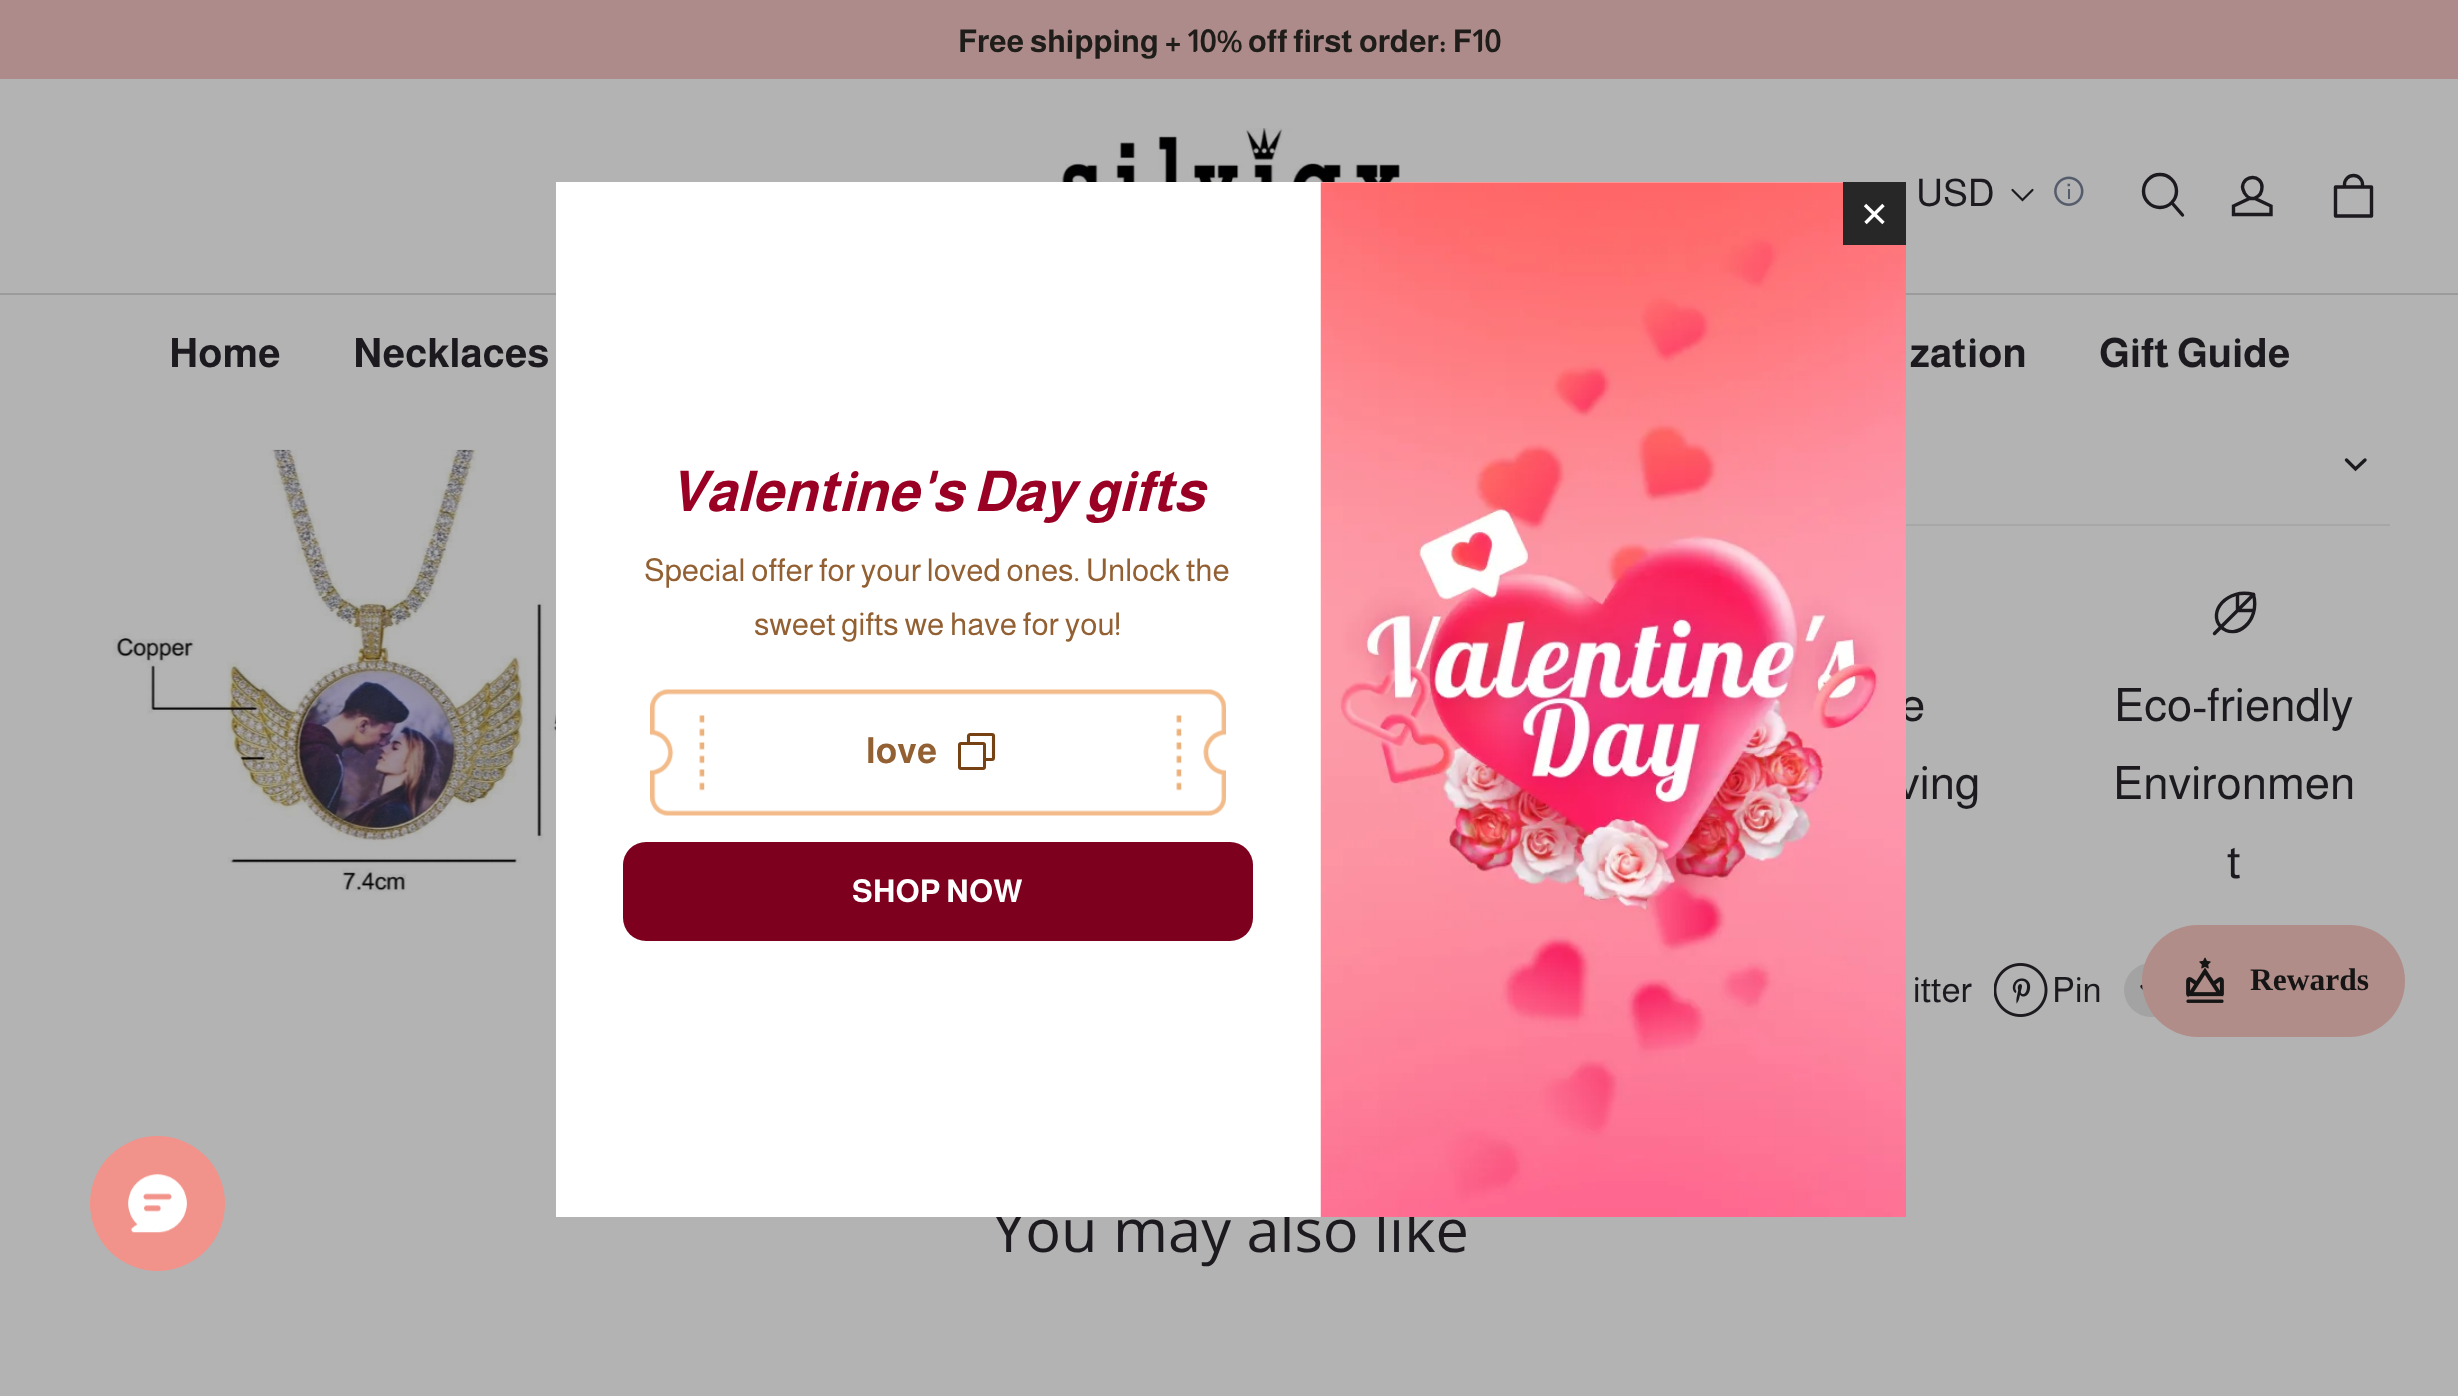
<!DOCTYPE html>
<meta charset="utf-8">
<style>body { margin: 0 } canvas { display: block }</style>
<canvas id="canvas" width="2458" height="1396"></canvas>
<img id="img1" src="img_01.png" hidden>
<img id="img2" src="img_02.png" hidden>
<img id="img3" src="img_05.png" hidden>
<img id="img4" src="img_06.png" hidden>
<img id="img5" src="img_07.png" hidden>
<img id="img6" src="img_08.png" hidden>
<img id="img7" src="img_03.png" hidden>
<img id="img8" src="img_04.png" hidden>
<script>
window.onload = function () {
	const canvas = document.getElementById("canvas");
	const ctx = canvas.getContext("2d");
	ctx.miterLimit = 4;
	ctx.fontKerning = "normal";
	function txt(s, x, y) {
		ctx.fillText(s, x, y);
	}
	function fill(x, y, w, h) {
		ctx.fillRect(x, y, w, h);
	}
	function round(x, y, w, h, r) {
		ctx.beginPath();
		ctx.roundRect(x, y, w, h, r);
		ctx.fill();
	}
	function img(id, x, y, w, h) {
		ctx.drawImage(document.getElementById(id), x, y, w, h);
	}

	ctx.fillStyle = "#B3B3B3";
	fill(0, 0, 2458, 1396);
	ctx.fillStyle = "#AD8B8B";
	fill(0, 0, 2458, 79);
	img("img1", 1061, 128, 339, 54);
	ctx.beginPath();
	ctx.moveTo(2012.5, 190);
	ctx.lineTo(2022.5, 200);
	ctx.lineTo(2032.5, 190);
	ctx.strokeStyle = "#1D1A1F";
	ctx.lineWidth = 2.2;
	ctx.lineCap = "round";
	ctx.stroke();
	img("img2", 2054, 176, 30, 30);
	ctx.beginPath();
	ctx.arc(2160, 191, 16.5, 0, Math.PI * 2);
	ctx.lineWidth = 3.4;
	ctx.stroke();
	ctx.beginPath();
	ctx.moveTo(2172.5, 203.5);
	ctx.lineTo(2182.5, 215);
	ctx.stroke();
	ctx.beginPath();
	ctx.moveTo(2262, 187);
	ctx.bezierCurveTo(2262, 197, 2250.5, 203.5, 2244.5, 193);
	ctx.bezierCurveTo(2243.5, 191, 2242.5, 189, 2242.5, 187);
	ctx.bezierCurveTo(2243.5, 174, 2262, 174.5, 2262, 187);
	ctx.closePath();
	ctx.moveTo(2233.5, 214.5);
	ctx.lineTo(2233.5, 206);
	ctx.lineTo(2249.5, 198.5);
	ctx.lineTo(2255, 198.5);
	ctx.lineTo(2271, 206);
	ctx.lineTo(2271, 214.5);
	ctx.closePath();
	ctx.lineCap = "butt";
	ctx.stroke();
	ctx.beginPath();
	ctx.moveTo(2335.5, 216);
	ctx.lineTo(2335.5, 187);
	ctx.lineTo(2371.5, 187);
	ctx.lineTo(2371.5, 216);
	ctx.closePath();
	ctx.moveTo(2344.5, 187);
	ctx.lineTo(2344.5, 184.5);
	ctx.bezierCurveTo(2344.5, 179.5, 2348.5, 175.5, 2353.5, 175.5);
	ctx.bezierCurveTo(2358.5, 175.5, 2362.5, 179.5, 2362.5, 184.5);
	ctx.lineTo(2362.5, 187);
	ctx.lineCap = "round";
	ctx.lineJoin = "round";
	ctx.stroke();
	ctx.fillStyle = "#9B9B9B";
	fill(0, 293, 2458, 2);
	img("img3", 68, 449, 488, 570);
	ctx.fillStyle = "#A7A7A7";
	fill(1906, 524, 484, 2);
	ctx.beginPath();
	ctx.moveTo(2346.5, 460);
	ctx.lineTo(2355.5, 469);
	ctx.lineTo(2365, 460);
	ctx.lineJoin = "miter";
	ctx.stroke();
	ctx.beginPath();
	ctx.moveTo(2221, 627);
	ctx.bezierCurveTo(2207, 612.5, 2227, 587.5, 2253.5, 594.5);
	ctx.bezierCurveTo(2260.5, 621.5, 2235.5, 641, 2221, 627);
	ctx.closePath();
	ctx.lineCap = "butt";
	ctx.stroke();
	ctx.beginPath();
	ctx.moveTo(2214.5, 633.5);
	ctx.lineTo(2253.5, 594.5);
	ctx.moveTo(2237.5, 594.5);
	ctx.lineTo(2237.5, 610.5);
	ctx.lineTo(2253.5, 610.5);
	ctx.lineCap = "round";
	ctx.lineJoin = "round";
	ctx.stroke();
	img("img4", 1994, 963, 54, 54);
	ctx.fillStyle = "#A4A3A4";
	ctx.beginPath();
	ctx.arc(2151, 990, 27, 0, Math.PI * 2);
	ctx.fill();
	ctx.beginPath();
	ctx.moveTo(2142, 986.5);
	ctx.lineTo(2151, 995.5);
	ctx.lineTo(2160, 986.5);
	ctx.lineJoin = "miter";
	ctx.stroke();
	ctx.fillStyle = "#B08D88";
	round(2142, 925, 263, 112, 56);
	img("img5", 2186, 957, 38, 46);
	ctx.fillStyle = "#F1938A";
	ctx.beginPath();
	ctx.arc(157.5, 1203.5, 67.5, 0, Math.PI * 2);
	ctx.fill();
	img("img6", 128, 1174, 59, 59);
	ctx.font = "bold 31.5px Almarai";
	ctx.fillStyle = "#1F1D19";
	txt("Free shipping + 10% off first order: F10", 958, 52);
	ctx.font = "38px Almarai";
	ctx.fillStyle = "#1D1A1F";
	txt("USD", 1916, 206);
	ctx.font = "bold 40.5px Almarai";
	txt("Home", 169, 367);
	txt("Necklaces", 353, 367);
	txt("zation", 1910, 367);
	txt("Gift Guide", 2099, 367);
	ctx.font = "46.25px Almarai";
	txt("e", 1900, 721);
	txt("ving", 1897, 799);
	txt("Eco-friendly", 2114, 721);
	txt("Environmen", 2113, 799);
	txt("t", 2227, 878);
	ctx.font = "35px Almarai";
	txt("itter", 1913, 1002);
	txt("Pin", 2052, 1002);
	ctx.font = "59.5px Open Sans";
	txt("You may also like", 992, 1252);
	ctx.fillStyle = "#FFFFFF";
	fill(556, 182, 1287, 1035);
	img("img7", 1320, 182, 586, 1035);
	ctx.fillStyle = "#272727";
	fill(1843, 182, 63, 63);
	ctx.beginPath();
	ctx.moveTo(1883.5, 205);
	ctx.lineTo(1865.5, 223);
	ctx.moveTo(1865, 205);
	ctx.lineTo(1883.5, 223);
	ctx.strokeStyle = "#FFFFFF";
	ctx.lineCap = "butt";
	ctx.stroke();
	ctx.fillStyle = "#7D001E";
	round(623, 842, 630, 99, 23);
	ctx.font = "bold 31.5px Almarai";
	ctx.fillStyle = "#FFFFFF";
	txt("SHOP NOW", 852, 902);
	img("img8", 650, 689, 576, 127);
	ctx.beginPath();
	ctx.roundRect(959.5, 743.5, 25, 25, 1.5);
	ctx.strokeStyle = "#764213";
	ctx.lineWidth = 3;
	ctx.stroke();
	ctx.beginPath();
	ctx.moveTo(986, 759.5);
	ctx.lineTo(992, 759.5);
	ctx.bezierCurveTo(993, 759.5, 993.5, 758.5, 993.5, 757.5);
	ctx.lineTo(993.5, 736);
	ctx.bezierCurveTo(993.5, 735, 993, 734.5, 992, 734.5);
	ctx.lineTo(970, 734.5);
	ctx.bezierCurveTo(969.5, 734.5, 968.5, 735, 968.5, 736);
	ctx.lineTo(968.5, 745);
	ctx.lineWidth = 3.1;
	ctx.stroke();
	ctx.font = "bold 36px Almarai";
	ctx.fillStyle = "#926032";
	txt("love", 866, 763);
	ctx.font = "31.5px Almarai";
	txt("sweet gifts we have for you!", 754, 635);
	txt("Special offer for your loved ones. Unlock the", 644, 581);
	ctx.font = "italic bold 56.25px Almarai";
	ctx.fillStyle = "#990024";
	txt("Valentine's Day gifts", 669, 511);
	ctx.font = "bold 31.5px Liberation Serif";
	ctx.fillStyle = "#161515";
	txt("Rewards", 2250, 990);
};
</script>
